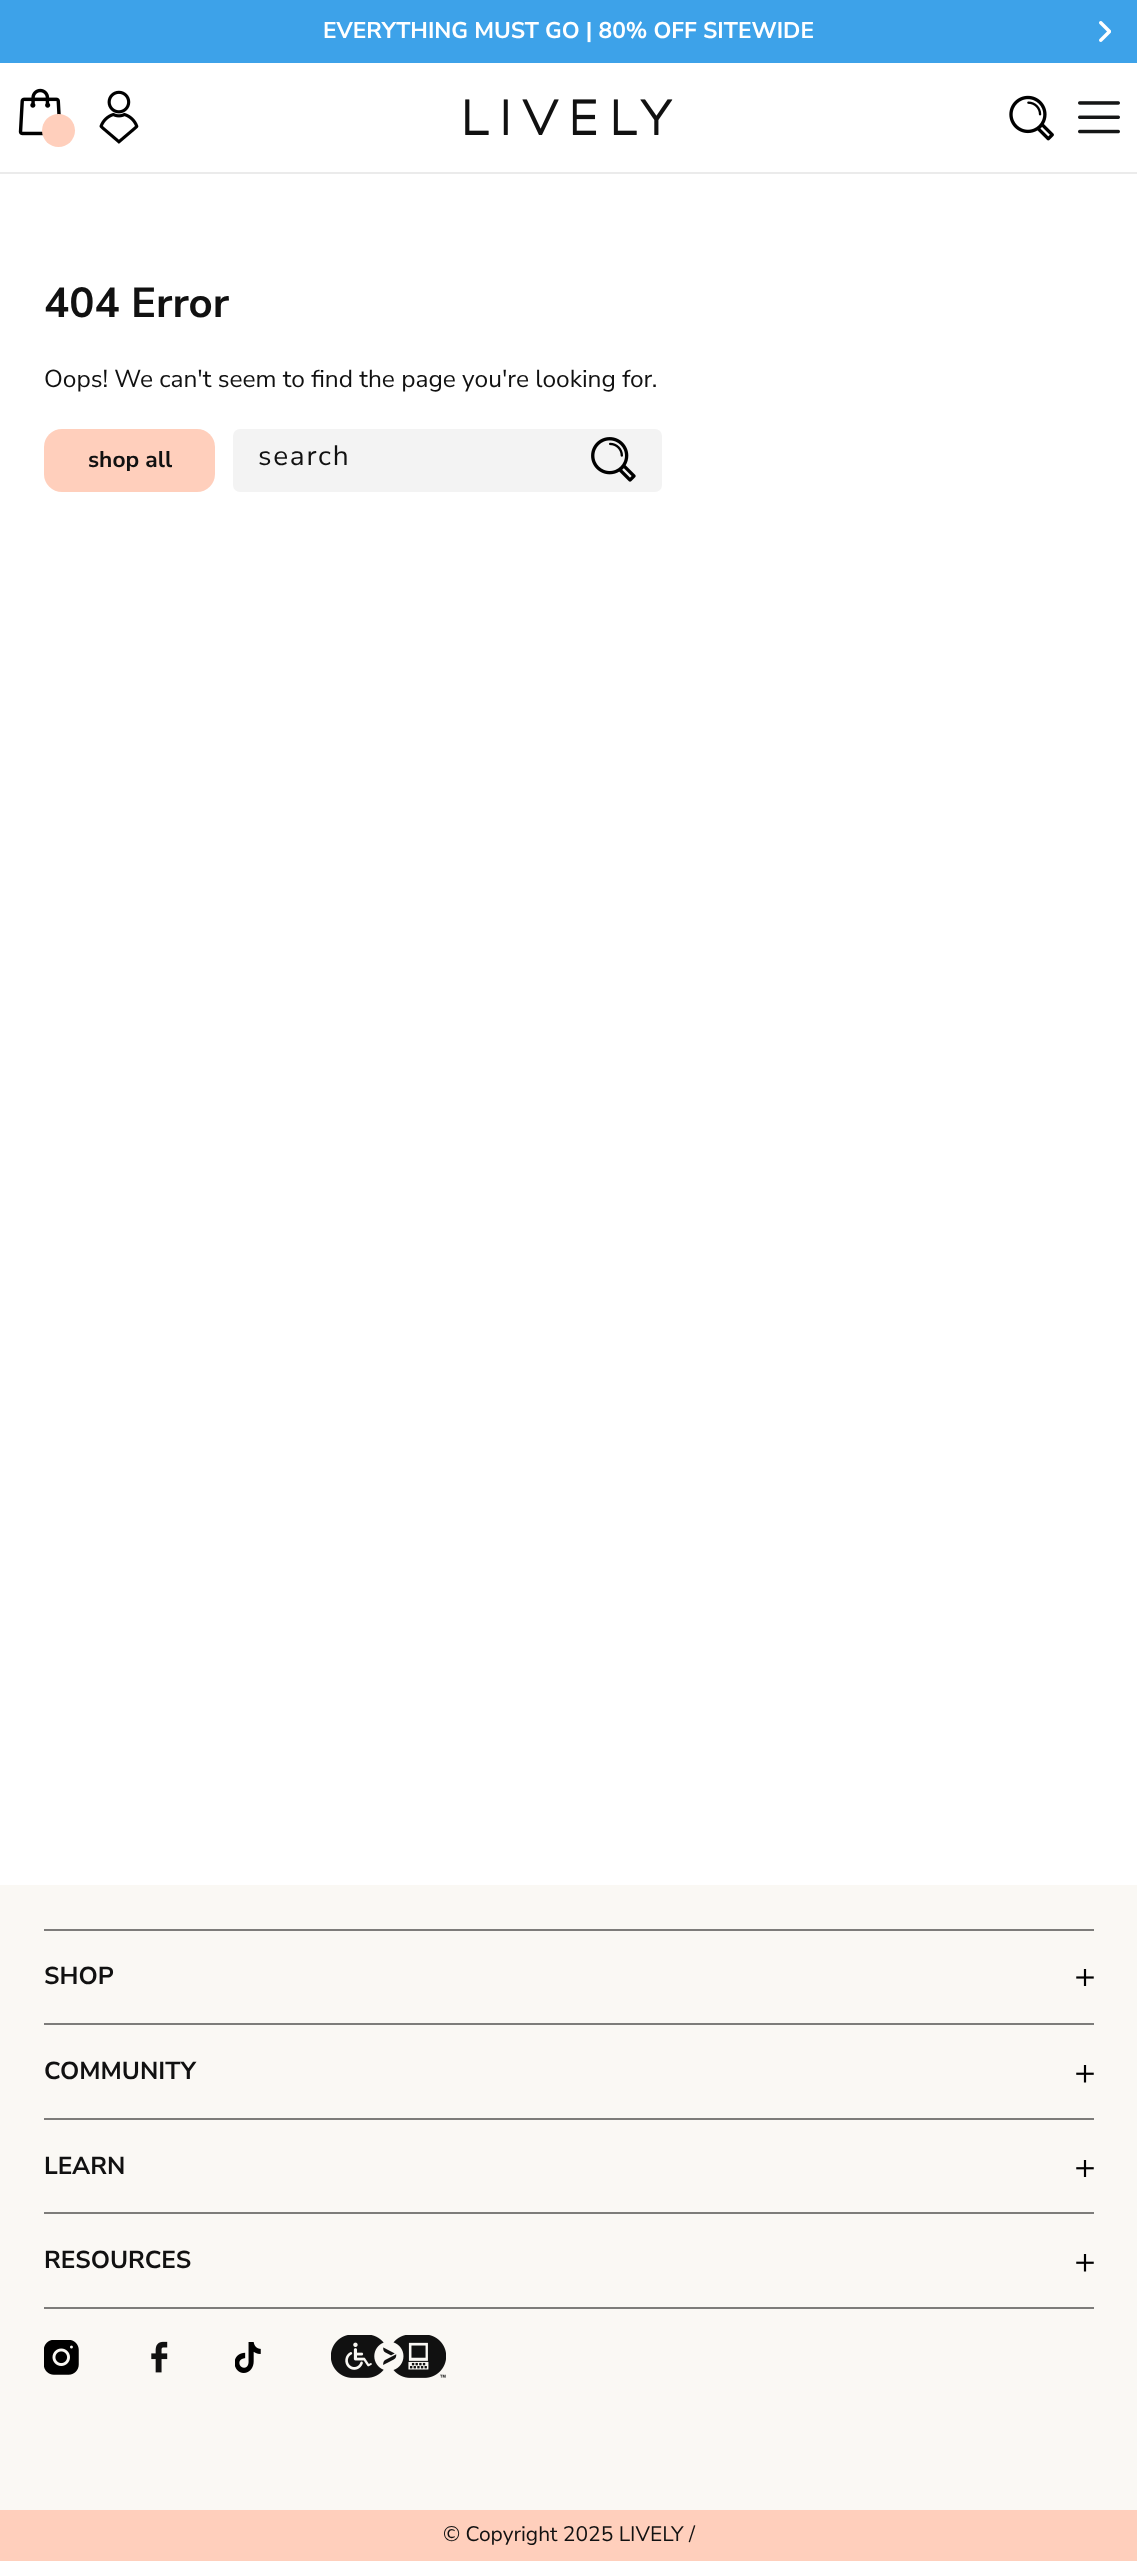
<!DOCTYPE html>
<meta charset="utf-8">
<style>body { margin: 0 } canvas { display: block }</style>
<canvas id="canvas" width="1137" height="2561"></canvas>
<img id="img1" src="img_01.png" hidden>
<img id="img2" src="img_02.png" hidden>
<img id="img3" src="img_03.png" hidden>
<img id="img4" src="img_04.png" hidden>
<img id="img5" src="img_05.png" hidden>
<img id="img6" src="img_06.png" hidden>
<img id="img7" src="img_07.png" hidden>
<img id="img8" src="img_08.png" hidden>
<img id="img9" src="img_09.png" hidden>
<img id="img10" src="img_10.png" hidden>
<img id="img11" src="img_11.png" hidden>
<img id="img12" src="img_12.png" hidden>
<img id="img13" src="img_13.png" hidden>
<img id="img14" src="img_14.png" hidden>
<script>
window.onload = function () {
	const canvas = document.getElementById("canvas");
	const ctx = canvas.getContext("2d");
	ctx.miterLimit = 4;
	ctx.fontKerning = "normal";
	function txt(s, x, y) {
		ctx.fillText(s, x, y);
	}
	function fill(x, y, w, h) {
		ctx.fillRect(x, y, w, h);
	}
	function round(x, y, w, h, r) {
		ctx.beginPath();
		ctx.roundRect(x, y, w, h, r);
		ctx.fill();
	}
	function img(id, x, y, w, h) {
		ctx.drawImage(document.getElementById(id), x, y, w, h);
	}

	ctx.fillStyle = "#FFFFFF";
	fill(0, 0, 1137, 2561);
	ctx.fillStyle = "#3DA2E9";
	fill(0, 0, 1137, 63);
	img("img1", 1099, 21, 12, 21);
	ctx.fillStyle = "#EBEBEB";
	fill(0, 172, 1137, 2);
	img("img2", 18, 88, 43, 48);
	ctx.fillStyle = "#FFCFBC";
	ctx.beginPath();
	ctx.arc(58.5, 130.5, 16.5, 0, Math.PI * 2);
	ctx.fill();
	img("img3", 99, 90, 40, 54);
	img("img4", 465, 99, 208, 36);
	img("img5", 1009, 95, 45, 46);
	img("img6", 1078, 101, 42, 33);
	round(44, 429, 171, 63, 18);
	ctx.fillStyle = "#F3F3F3";
	round(233, 429, 429, 63, 7);
	img("img7", 591, 437, 45, 45);
	ctx.fillStyle = "#FAF8F4";
	fill(0, 1885, 1137, 625);
	ctx.fillStyle = "#7D7C7A";
	fill(44, 1929, 1050, 2);
	img("img8", 1076, 1969, 18, 17);
	fill(44, 2023, 1050, 2);
	img("img9", 1076, 2065, 18, 18);
	fill(44, 2118, 1050, 2);
	img("img10", 1076, 2160, 18, 17);
	fill(44, 2212, 1050, 2);
	img("img9", 1076, 2254, 18, 18);
	fill(44, 2307, 1050, 2);
	img("img11", 44, 2340, 35, 35);
	img("img12", 151, 2341, 17, 32);
	img("img13", 235, 2342, 26, 31);
	img("img14", 331, 2335, 115, 43);
	ctx.fillStyle = "#FFCFBC";
	fill(0, 2510, 1137, 51);
	ctx.font = "bold 22.75px Nunito Sans";
	ctx.fillStyle = "#FFFFFF";
	txt("EVERYTHING MUST GO | 80% OFF SITEWIDE", 323, 38);
	ctx.font = "bold 42px Nunito Sans";
	ctx.fillStyle = "#111111";
	txt("404 Error", 44, 317);
	ctx.font = "24.5px Nunito Sans";
	txt("Oops! We can't seem to find the page you're looking for.", 44, 387);
	ctx.font = "bold 22.75px Nunito Sans";
	txt("shop all", 88, 467);
	ctx.letterSpacing = "1.75px";
	ctx.font = "28px Nunito Sans";
	txt("search", 258, 465);
	ctx.letterSpacing = "0px";
	ctx.font = "bold 24.5px Nunito Sans";
	txt("SHOP", 44, 1984);
	txt("COMMUNITY", 44, 2079);
	txt("LEARN", 44, 2174);
	txt("RESOURCES", 44, 2268);
	ctx.font = "21px Nunito Sans";
	txt("© Copyright 2025 LIVELY /", 443, 2541);
};
</script>
